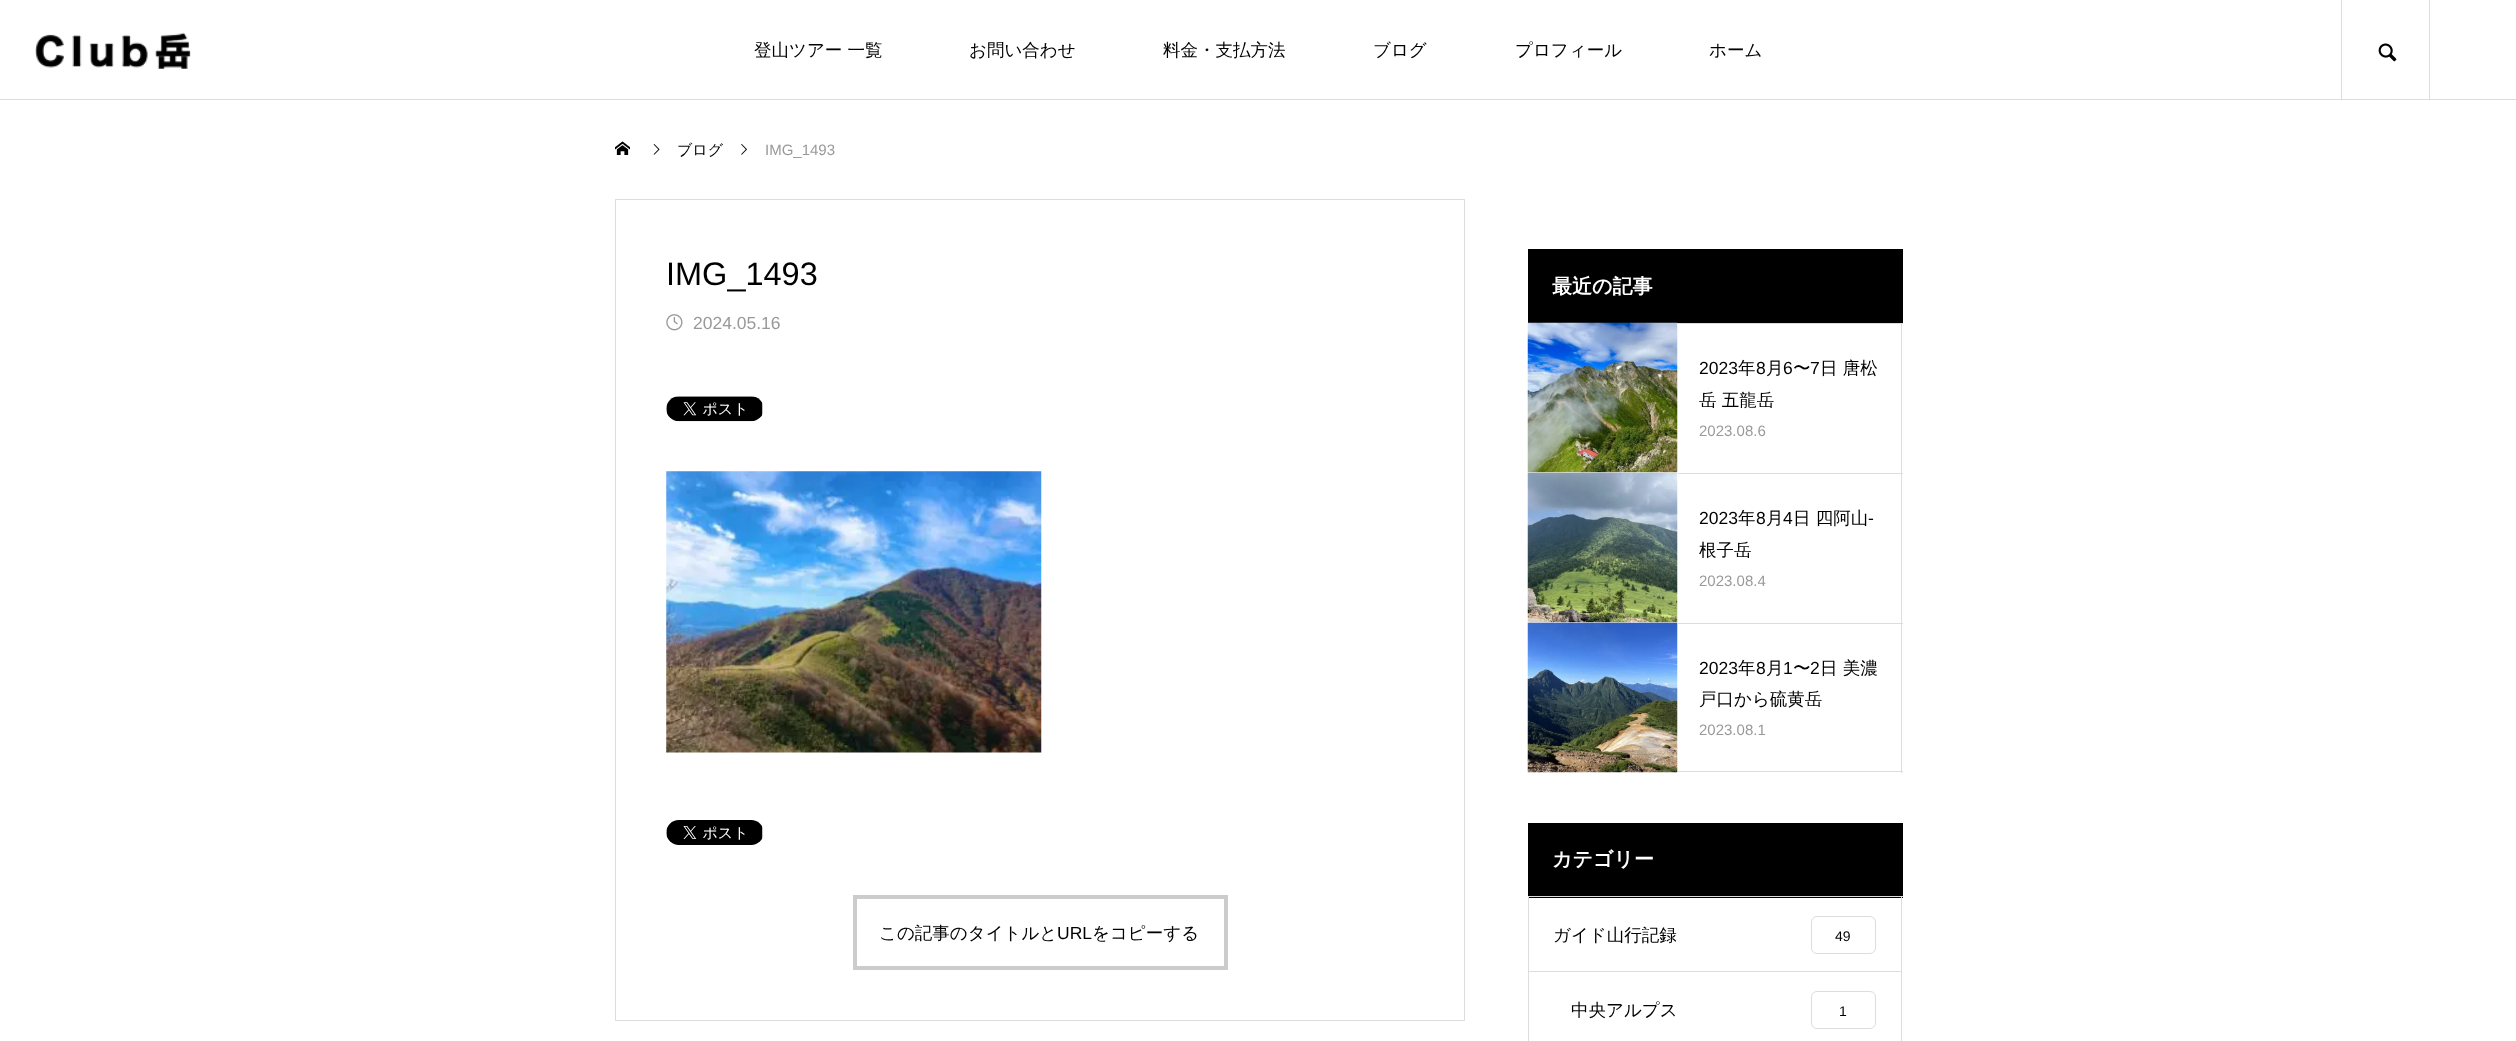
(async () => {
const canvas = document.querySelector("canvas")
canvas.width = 2516
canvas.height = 1041
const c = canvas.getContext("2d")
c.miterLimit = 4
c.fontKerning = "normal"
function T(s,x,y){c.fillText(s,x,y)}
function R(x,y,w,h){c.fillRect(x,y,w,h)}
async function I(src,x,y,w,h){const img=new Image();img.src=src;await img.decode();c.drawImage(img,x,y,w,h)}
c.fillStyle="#fff"
R(0,0,2516,1041)
c.fillStyle="#ddd"
R(0,99,2516,1)
await I("1.png",35,32,156,37)
c.font="500 17.5px WenQuanYi Zen Hei"
c.fillStyle="#000"
T("登山ツアー 一覧",754,56)
T("お問い合わせ",969,56)
T("料金・支払方法",1163,56)
T("ブログ",1373,56)
T("プロフィール",1515,56)
T("ホーム",1709,56)
c.fillStyle="#ddd"
R(2341,0,1,100)
await I("2.png",2378,43,19,19)
R(2429,0,1,100)
await I("3.png",615,141,15,14)
await I("4.png",653,144,7,11)
c.font="500 15px WenQuanYi Zen Hei"
c.fillStyle="#000"
T("ブログ",677,155)
await I("5.png",741,144,6,11)
c.font="15px Liberation Sans"
c.fillStyle="#999"
T("IMG_1493",765,155)
c.strokeStyle="#ddd"
c.strokeRect(615.5,199.5,849,821)
c.font="32.5px Liberation Sans"
c.fillStyle="#000"
T("IMG_1493",666,285)
await I("6.png",666,314,17,17)
c.font="17.5px Liberation Sans"
c.fillStyle="#999"
T("2024.05.16",693,329)
await I("7.png",666,396,97,26)
await I("8.png",666,471,376,282)
await I("9.png",666,820,97,25)
c.strokeStyle="#ccc"
c.lineWidth=4
c.strokeRect(855,897,371,71)
c.font="500 17.5px WenQuanYi Zen Hei"
c.fillStyle="#000"
T("この記事のタイトルと",879,939)
c.font="17.5px Liberation Sans"
T("URL",1057,939)
c.font="500 17.5px WenQuanYi Zen Hei"
T("をコピーする",1092,939)
R(1528,249,375,74)
c.font="bold 20px WenQuanYi Zen Hei"
c.fillStyle="#fff"
T("最近の記事",1552,293)
await I("10.png",1527,322,151,151)
c.fillStyle="#ddd"
R(1678,323,225,1)
R(1901,323,1,150)
c.font="17.5px Liberation Sans"
c.fillStyle="#000"
T("2023",1699,374)
c.font="500 17.5px WenQuanYi Zen Hei"
T("年",1738,374)
c.font="17.5px Liberation Sans"
T("8",1756,374)
c.font="500 17.5px WenQuanYi Zen Hei"
T("月",1766,374)
c.font="17.5px Liberation Sans"
T("6",1783,374)
c.font="500 17.5px WenQuanYi Zen Hei"
T("〜",1793,374)
c.font="17.5px Liberation Sans"
T("7",1810,374)
c.font="500 17.5px WenQuanYi Zen Hei"
T("日 唐松",1820,374)
T("岳 五龍岳",1699,406)
c.font="15px Liberation Sans"
c.fillStyle="#999"
T("2023.08.6",1699,436)
await I("11.png",1527,472,151,151)
c.fillStyle="#ddd"
R(1678,473,225,1)
R(1901,473,1,150)
c.font="17.5px Liberation Sans"
c.fillStyle="#000"
T("2023",1699,524)
c.font="500 17.5px WenQuanYi Zen Hei"
T("年",1738,524)
c.font="17.5px Liberation Sans"
T("8",1756,524)
c.font="500 17.5px WenQuanYi Zen Hei"
T("月",1766,524)
c.font="17.5px Liberation Sans"
T("4",1783,524)
c.font="500 17.5px WenQuanYi Zen Hei"
T("日 四阿山",1793,524)
c.font="17.5px Liberation Sans"
T("-",1868,524)
c.font="500 17.5px WenQuanYi Zen Hei"
T("根子岳",1699,556)
c.font="15px Liberation Sans"
c.fillStyle="#999"
T("2023.08.4",1699,586)
await I("12.png",1527,622,151,151)
c.fillStyle="#ddd"
R(1678,623,225,1)
R(1901,623,1,150)
R(1678,771,225,1)
c.font="17.5px Liberation Sans"
c.fillStyle="#000"
T("2023",1699,674)
c.font="500 17.5px WenQuanYi Zen Hei"
T("年",1738,674)
c.font="17.5px Liberation Sans"
T("8",1756,674)
c.font="500 17.5px WenQuanYi Zen Hei"
T("月",1766,674)
c.font="17.5px Liberation Sans"
T("1",1783,674)
c.font="500 17.5px WenQuanYi Zen Hei"
T("〜",1793,674)
c.font="17.5px Liberation Sans"
T("2",1810,674)
c.font="500 17.5px WenQuanYi Zen Hei"
T("日 美濃",1820,674)
T("戸口から硫黄岳",1699,705)
c.font="15px Liberation Sans"
c.fillStyle="#999"
T("2023.08.1",1699,735)
c.fillStyle="#000"
R(1528,823,375,75)
c.font="bold 20px WenQuanYi Zen Hei"
c.fillStyle="#fff"
T("カテゴリー",1552,866)
c.fillStyle="#ddd"
R(1528,896,375,1)
R(1901,896,1,145)
R(1528,896,1,145)
R(1529,971,372,1)
c.font="500 17.5px WenQuanYi Zen Hei"
c.fillStyle="#000"
T("ガイド山行記録",1553,941)
c.beginPath()
c.roundRect(1811.5,916.5,64,37,5.5)
c.strokeStyle="#ddd"
c.lineWidth=1
c.stroke()
c.font="14px Liberation Sans"
T("49",1835,941)
c.font="500 17.5px WenQuanYi Zen Hei"
T("中央アルプス",1571,1016)
c.beginPath()
c.roundRect(1811.5,991.5,64,37,5.5)
c.stroke()
c.font="14px Liberation Sans"
T("1",1839,1016)
})()
